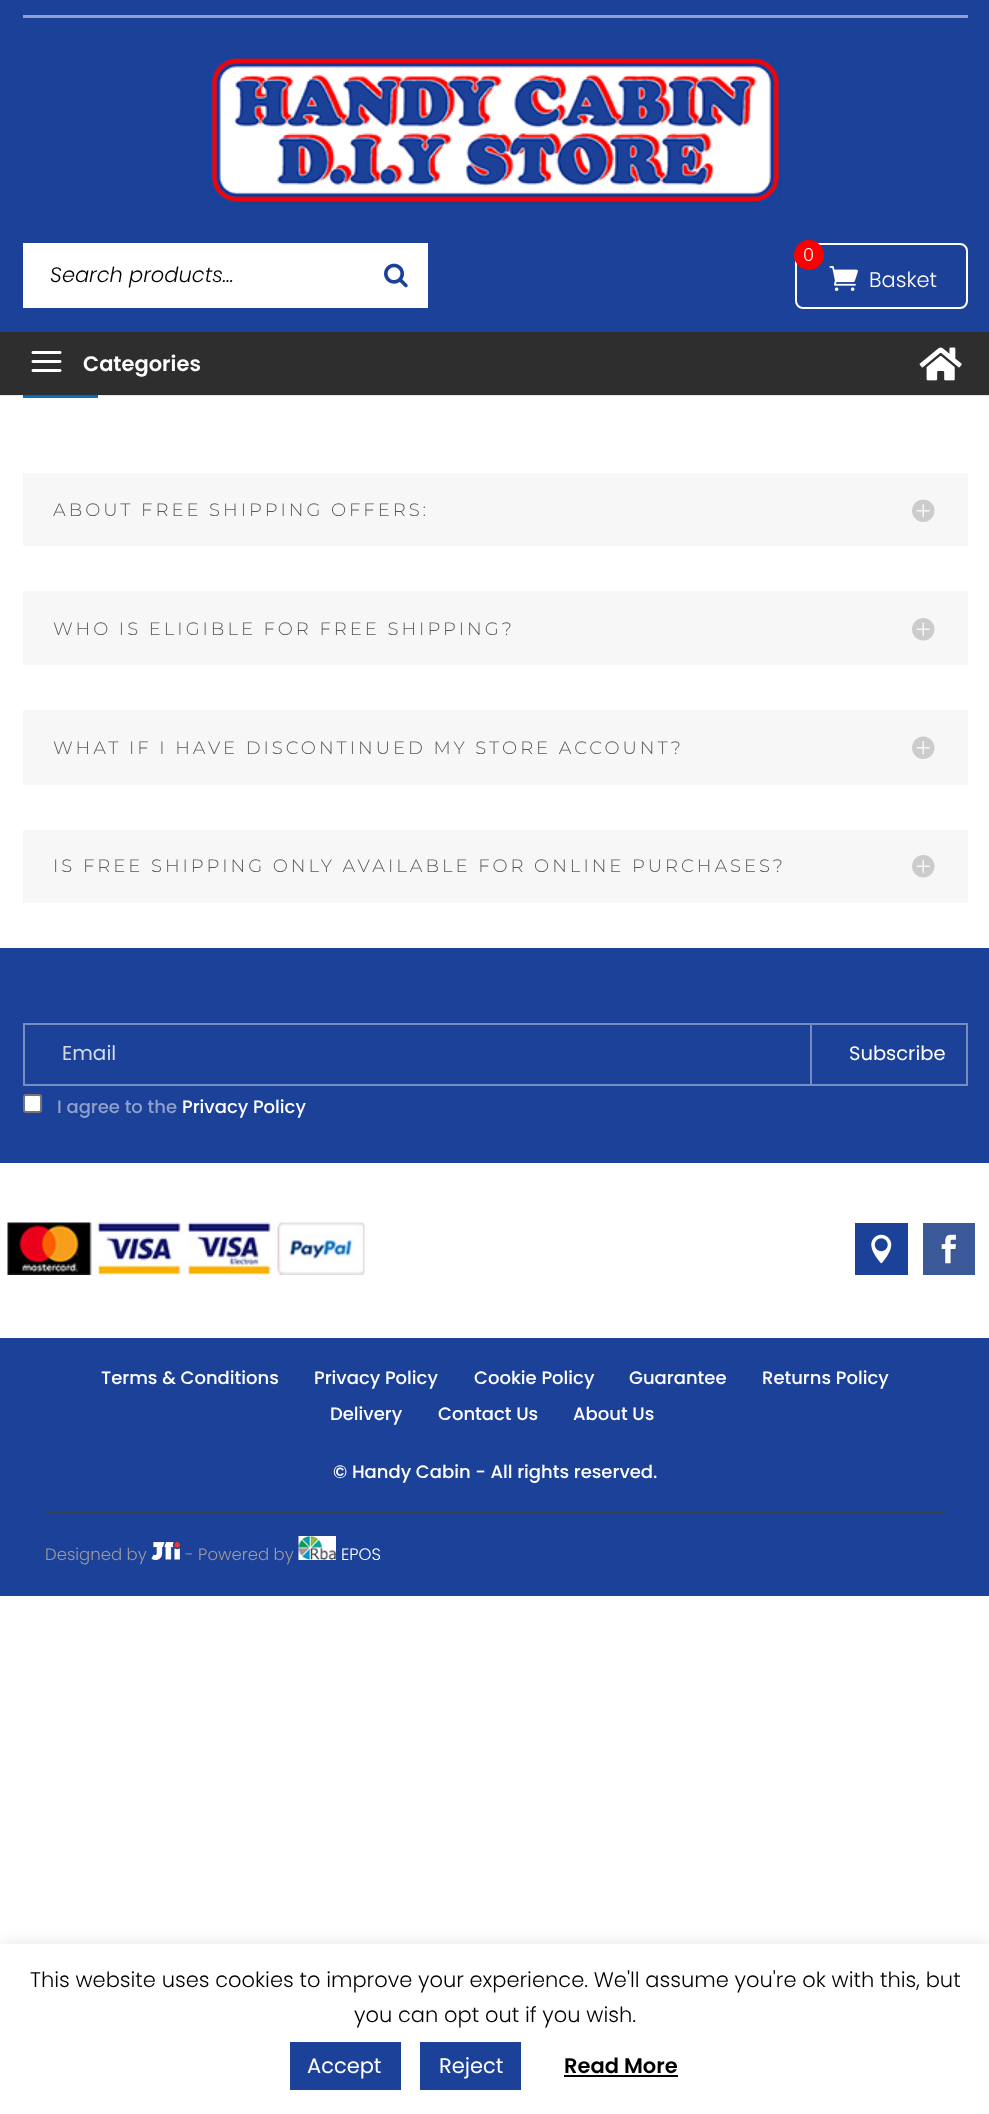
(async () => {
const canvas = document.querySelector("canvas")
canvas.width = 989
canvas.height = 2114
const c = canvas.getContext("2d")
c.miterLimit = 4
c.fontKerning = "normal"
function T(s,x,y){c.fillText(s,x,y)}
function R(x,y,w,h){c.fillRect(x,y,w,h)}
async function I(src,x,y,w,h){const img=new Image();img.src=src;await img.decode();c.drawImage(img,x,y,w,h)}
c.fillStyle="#fff"
R(0,0,989,2114)
c.fillStyle="#e6e6e6"
R(0,395,989,1)
c.fillStyle="#1c4198"
R(0,0,989,332)
c.fillStyle="#8ea0cc"
R(23,15,945,3)
await I("1.png",209,55,573,150)
c.fillStyle="#fff"
R(23,243,405,65)
c.font="italic 300 21px Poppins"
c.fillStyle="#000"
T("Search products…",50,282)
await I("2.png",384,263,24,25)
c.beginPath()
c.roundRect(796,244,171,64,[14,7,7,7])
c.strokeStyle="#fff"
c.lineWidth=2
c.stroke()
c.fillStyle="#fb0000"
c.beginPath()
c.arc(809,255,15,0,7)
c.fill()
c.font="300 18px Poppins"
c.fillStyle="#fff"
T("0",803,261)
await I("3.png",829,266,29,25)
c.font="300 21px Poppins"
T("Basket",869,287)
c.fillStyle="#2e2e2e"
R(0,332,989,63)
await I("4.png",31,351,31,21)
c.font="600 21px Poppins"
c.fillStyle="#fff"
T("Categories",83,371)
await I("5.png",919,347,43,34)
c.fillStyle="#0c71c3"
R(23,396,75,2)
c.fillStyle="#0b66b0"
R(23,395,75,1)
c.fillStyle="#f7f7f7"
R(23,473,945,73)
c.letterSpacing="3px"
c.font="100 18px Montserrat"
c.fillStyle="#595959"
T("ABOUT FREE SHIPPING OFFERS:",53,516)
await I("6.png",912,499,23,23)
c.fillStyle="#f7f7f7"
R(23,591,945,74)
c.fillStyle="#595959"
T("WHO IS ELIGIBLE FOR FREE SHIPPING?",53,635)
await I("7.png",912,618,23,23)
c.fillStyle="#f7f7f7"
R(23,710,945,75)
c.fillStyle="#595959"
T("WHAT IF I HAVE DISCONTINUED MY STORE ACCOUNT?",53,754)
await I("6.png",912,736,23,23)
c.fillStyle="#f7f7f7"
R(23,830,945,73)
c.fillStyle="#595959"
T("IS FREE SHIPPING ONLY AVAILABLE FOR ONLINE PURCHASES?",53,872)
await I("7.png",912,855,23,23)
c.fillStyle="#1c4198"
R(0,948,989,215)
c.strokeStyle="#778dc1"
c.strokeRect(24,1024,943,61)
c.letterSpacing="0px"
c.font="20px Poppins"
c.fillStyle="#d2d9ea"
T("Email",62,1060)
c.strokeRect(811,1024,156,61)
c.font="19.5px Poppins"
c.fillStyle="#fff"
T("Subscribe",849,1060)
c.beginPath()
c.roundRect(24,1095,17,17,2)
c.fill()
c.strokeStyle="#767676"
c.stroke()
c.font="500 18px Poppins"
c.fillStyle="#8ea0cc"
T("I agree to the",57,1113)
c.fillStyle="#fff"
T("Privacy Policy",182,1113)
await I("8.png",7,1222,358,53)
c.fillStyle="#1c4198"
R(855,1223,53,52)
await I("9.png",871,1234,21,30)
c.fillStyle="#3b5998"
R(923,1223,52,52)
await I("10.png",941,1234,15,30)
c.fillStyle="#1c4198"
R(0,1338,989,258)
c.fillStyle="#fff"
T("Terms & Conditions",101,1384)
T("Privacy Policy",314,1384)
T("Cookie Policy",474,1384)
T("Guarantee",629,1384)
T("Returns Policy",762,1384)
T("Delivery",330,1420)
T("Contact Us",438,1420)
T("About Us",573,1420)
T("© Handy Cabin - All rights reserved.",333,1478)
c.fillStyle="#354058"
R(45,1512,900,2)
c.font="300 16.5px Poppins"
c.fillStyle="#9e9b9e"
T("Designed by",45,1560)
await I("11.png",151,1542,29,18)
T("- Powered by",185,1560)
await I("12.png",298,1536,38,24)
c.fillStyle="#fff"
T("EPOS",341,1560)
c.fillStyle="#acabab4d"
c.filter="blur(7.5px)"
c.beginPath()
c.rect(0,1943,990,171)
c.fill()
c.filter="none"
c.fillStyle="#fff"
R(0,1944,989,170)
c.font="300 21px Poppins"
c.fillStyle="#000"
T("This website uses cookies to improve your experience. We'll assume you're ok with this, but",30,1987)
T("you can opt out if you wish.",354,2022)
c.fillStyle="#1c4198"
R(290,2042,111,48)
c.font="21px Poppins"
c.fillStyle="#fff"
T("Accept",307,2073)
c.fillStyle="#1c4198"
R(420,2042,101,48)
c.fillStyle="#fff"
T("Reject",439,2073)
c.font="600 21px Poppins"
c.fillStyle="#000"
T("Read More",564,2073)
R(564,2075,114,2)
})()
